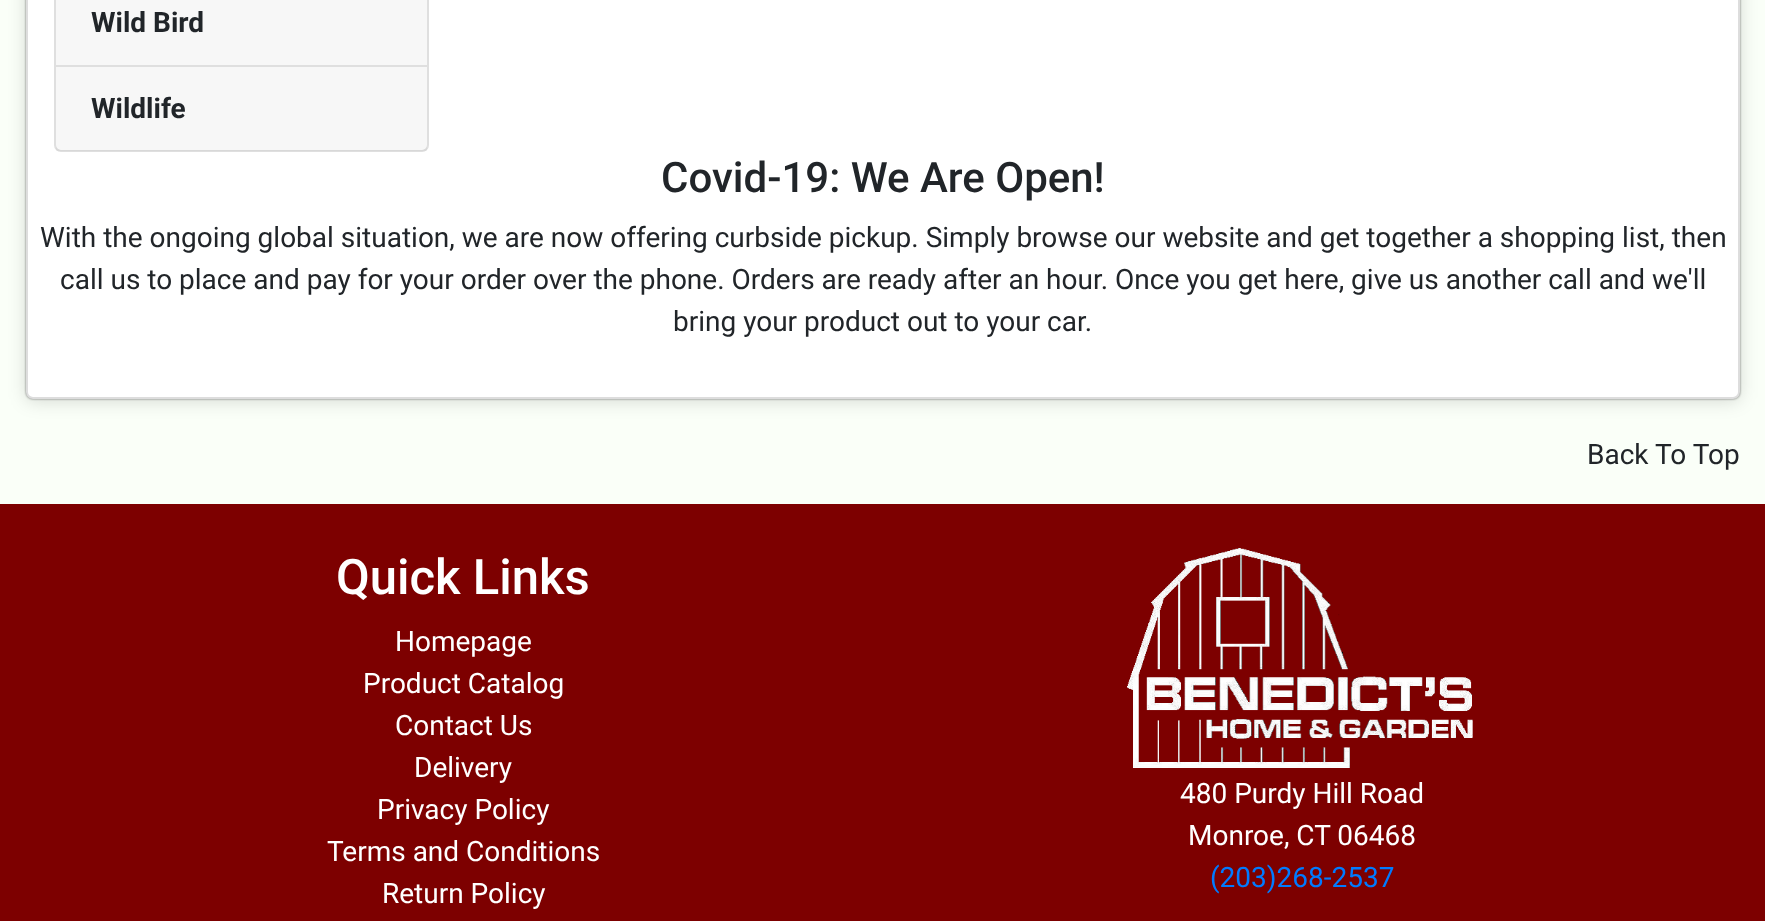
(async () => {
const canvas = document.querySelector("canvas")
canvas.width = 1765
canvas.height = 921
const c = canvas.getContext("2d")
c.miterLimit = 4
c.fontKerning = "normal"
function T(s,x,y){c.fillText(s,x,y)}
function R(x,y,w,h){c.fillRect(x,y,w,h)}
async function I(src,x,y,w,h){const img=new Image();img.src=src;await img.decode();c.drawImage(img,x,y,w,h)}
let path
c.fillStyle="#fafff8"
R(0,0,1765,921)
c.fillStyle="#00000026"
c.filter="blur(9px)"
c.beginPath()
c.roundRect(26,-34,1714,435,7)
c.fill()
c.filter="none"
c.fillStyle="#00000080"
c.filter="blur(1px)"
c.beginPath()
c.roundRect(26,-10,1714,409,7)
c.fill()
c.filter="none"
c.fillStyle="#fff"
c.beginPath()
c.roundRect(27,-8,1712,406,6)
c.fill()
c.strokeStyle="#ddd"
c.lineWidth=2
c.stroke()
c.fillStyle="#dfdfdf"
path = new Path2D("M429-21v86h-2v-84z")
c.fill(path)
path = new Path2D("M54 65v-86l2 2v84z")
c.fill(path)
c.fillStyle="#f7f7f7"
R(56,0,371,65)
c.font="bold 28px Roboto"
c.fillStyle="#212529"
T("Wild Bird",91,32)
c.beginPath()
c.roundRect(55,66,373,85,[0,0,6,6])
c.strokeStyle="#dfdfdf"
c.stroke()
c.fillStyle="#00000008"
R(56,67,371,84)
c.fillStyle="#212529"
T("Wildlife",91,118)
c.font="500 42px Roboto"
T("Covid-19: We Are Open!",661,192)
c.font="28px Roboto"
T("With the ongoing global situation, we are now offering curbside pickup. Simply browse our website and get together a shopping list, then",40,247)
T("call us to place and pay for your order over the phone. Orders are ready after an hour. Once you get here, give us another call and we'll",60,289)
T("bring your product out to your car.",673,331)
T("Back To Top",1587,464)
c.fillStyle="#7d0000"
R(0,504,1765,417)
c.font="500 49px Roboto"
c.fillStyle="#fff"
T("Quick Links",336,594)
c.font="28px Roboto"
T("Homepage",395,651)
T("Product Catalog",363,693)
T("Contact Us",395,735)
T("Delivery",414,777)
T("Privacy Policy",377,819)
T("Terms and Conditions",327,861)
T("Return Policy",382,903)
await I("1.png",1127,548,346,220)
T("480 Purdy Hill Road",1180,803)
T("Monroe, CT 06468",1188,845)
c.fillStyle="#007bff"
T("(203)268-2537",1210,887)
})()
